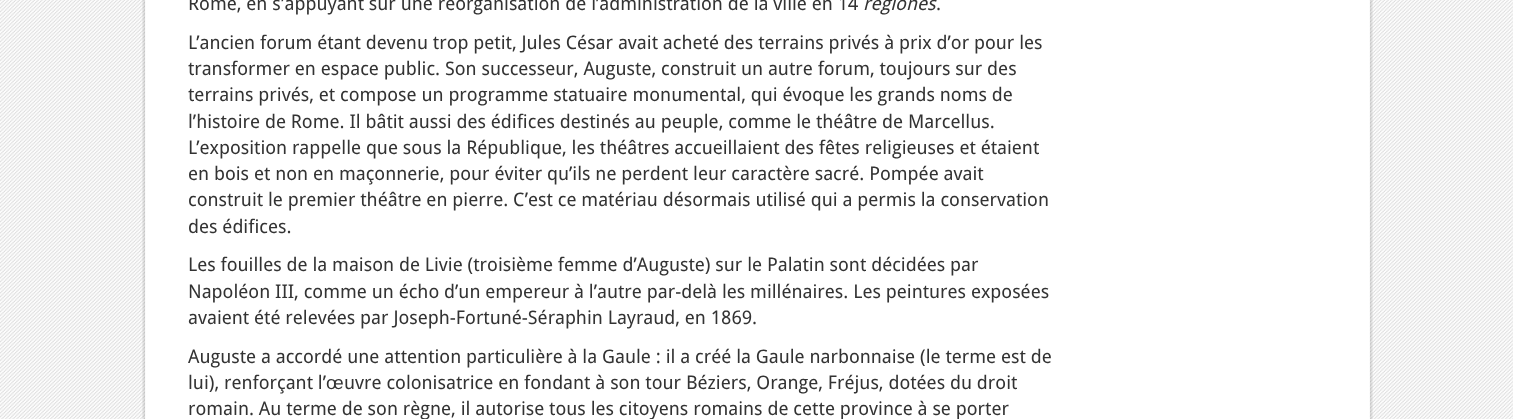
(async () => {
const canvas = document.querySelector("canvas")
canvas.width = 1513
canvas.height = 419
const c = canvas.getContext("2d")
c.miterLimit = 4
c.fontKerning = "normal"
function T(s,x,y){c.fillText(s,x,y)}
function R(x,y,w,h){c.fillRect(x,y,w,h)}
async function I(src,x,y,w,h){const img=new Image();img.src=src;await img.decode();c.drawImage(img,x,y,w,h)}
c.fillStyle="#fff"
R(0,0,1513,419)
await I("1.png",0,0,1513,419)
await I("2.png",142,0,1231,419)
c.font="18.75px Droid Sans"
c.fillStyle="#333"
T("Rome, en s’appuyant sur une réorganisation de l’administration de la ville en 14",188,10)
c.font="italic 18.75px Droid Sans"
T("regiones",863,10)
c.font="18.75px Droid Sans"
T(".",936,10)
T("L’ancien forum étant devenu trop petit, Jules César avait acheté des terrains privés à prix d’or pour les",188,49)
T("transformer en espace public. Son successeur, Auguste, construit un autre forum, toujours sur des",188,75)
T("terrains privés, et compose un programme statuaire monumental, qui évoque les grands noms de",188,101)
T("l’histoire de Rome. Il bâtit aussi des édifices destinés au peuple, comme le théâtre de Marcellus.",188,128)
T("L’exposition rappelle que sous la République, les théâtres accueillaient des fêtes religieuses et étaient",188,154)
T("en bois et non en maçonnerie, pour éviter qu’ils ne perdent leur caractère sacré. Pompée avait",188,180)
T("construit le premier théâtre en pierre. C’est ce matériau désormais utilisé qui a permis la conservation",188,206)
T("des édifices.",188,233)
T("Les fouilles de la maison de Livie (troisième femme d’Auguste) sur le Palatin sont décidées par",188,271)
T("Napoléon III, comme un écho d’un empereur à l’autre par-delà les millénaires. Les peintures exposées",188,298)
T("avaient été relevées par Joseph-Fortuné-Séraphin Layraud, en 1869.",188,324)
T("Auguste a accordé une attention particulière à la Gaule : il a créé la Gaule narbonnaise (le terme est de",188,363)
T("lui), renforçant l’",188,389)
c.font="18.75px Liberation Sans"
T("œ",326,389)
c.font="18.75px Droid Sans"
T("uvre colonisatrice en fondant à son tour Béziers, Orange, Fréjus, dotées du droit",344,389)
T("romain. Au terme de son règne, il autorise tous les citoyens romains de cette province à se porter",188,415)
})()
